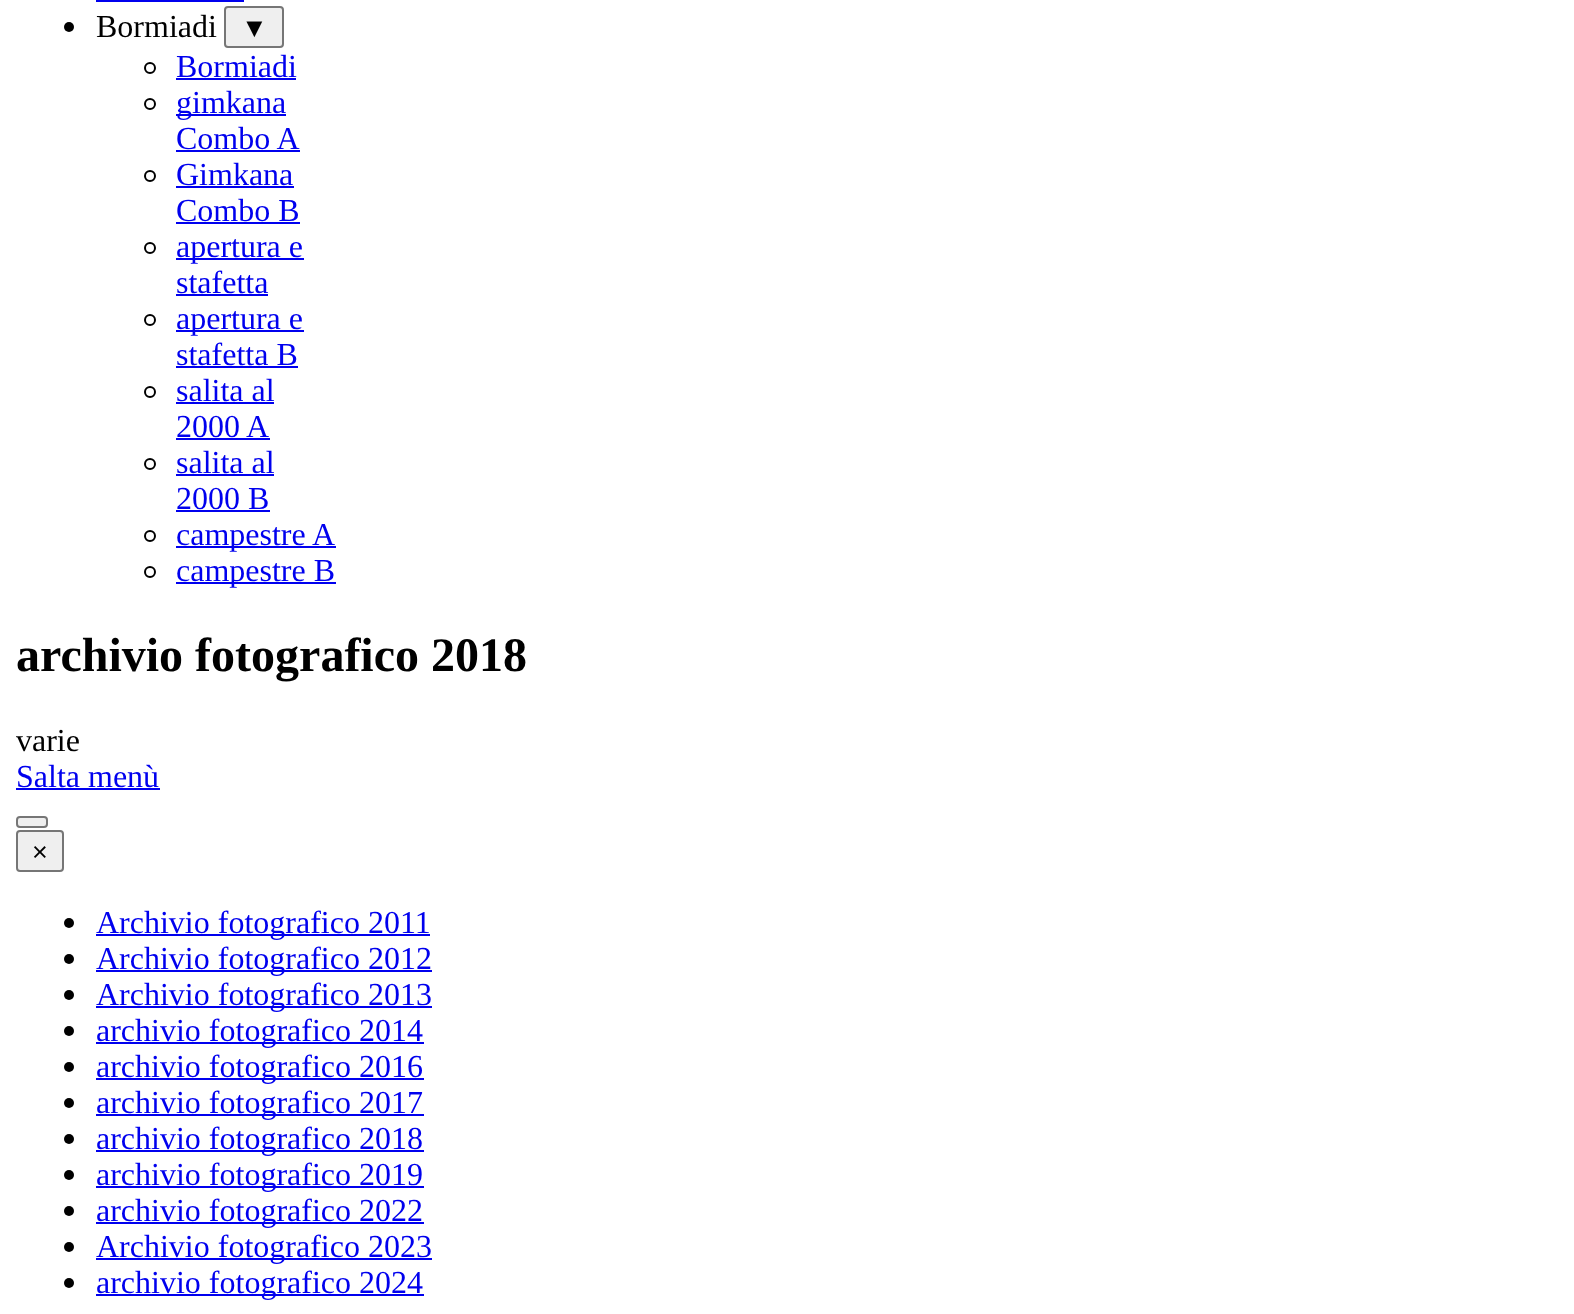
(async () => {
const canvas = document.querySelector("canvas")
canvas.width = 1574
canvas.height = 1314
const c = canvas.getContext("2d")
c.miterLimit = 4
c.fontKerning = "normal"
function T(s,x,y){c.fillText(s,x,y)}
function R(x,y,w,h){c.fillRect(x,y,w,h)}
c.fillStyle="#fff"
R(0,0,1574,1314)
c.fillStyle="#00e"
R(96,0,148,2)
c.fillStyle="#000"
c.beginPath()
c.arc(69,27,5,0,7)
c.fill()
c.font="32px Liberation Serif"
T("Bormiadi",96,37)
c.fillStyle="#efefef"
c.beginPath()
c.roundRect(225,7,58,40,3)
c.fill()
c.strokeStyle="#767676"
c.lineWidth=2
c.stroke()
c.font="27px Liberation Sans"
c.fillStyle="#000"
T("▼",241,37)
c.beginPath()
c.arc(150,68,5,0,7)
c.strokeStyle="#000"
c.stroke()
c.font="32px Liberation Serif"
c.fillStyle="#00e"
T("Bormiadi",176,77)
R(176,78,120,2)
c.beginPath()
c.arc(150,104,5,0,7)
c.stroke()
R(176,114,110,2)
T("gimkana",176,113)
T("Combo A",176,149)
R(176,150,124,2)
c.beginPath()
c.arc(150,176,5,0,7)
c.stroke()
T("Gimkana",176,185)
R(176,186,118,2)
T("Combo B",176,221)
R(176,222,124,2)
c.beginPath()
c.arc(150,248,5,0,7)
c.stroke()
R(176,258,128,2)
T("apertura e",176,257)
T("stafetta",176,293)
R(176,294,92,2)
c.beginPath()
c.arc(150,320,5,0,7)
c.stroke()
R(176,330,128,2)
T("apertura e",176,329)
T("stafetta B",176,365)
R(176,366,122,2)
c.beginPath()
c.arc(150,392,5,0,7)
c.stroke()
T("salita al",176,401)
R(176,402,98,2)
T("2000",176,437)
R(176,438,94,2)
T("A",246,437)
c.beginPath()
c.arc(150,464,5,0,7)
c.stroke()
T("salita al",176,473)
R(176,474,98,2)
T("2000 B",176,509)
R(176,510,94,2)
c.beginPath()
c.arc(150,536,5,0,7)
c.stroke()
R(176,546,160,2)
T("campestre A",176,545)
c.beginPath()
c.arc(150,572,5,0,7)
c.stroke()
R(176,582,160,2)
T("campestre B",176,581)
c.font="bold 48px Liberation Serif"
c.fillStyle="#000"
T("archivio fotografico 2018",16,671)
c.font="32px Liberation Serif"
T("varie",16,751)
c.fillStyle="#00e"
T("Salta menù",16,787)
R(16,788,144,2)
c.fillStyle="#efefef"
c.beginPath()
c.roundRect(17,817,30,10,3)
c.fill()
c.strokeStyle="#767676"
c.stroke()
c.beginPath()
c.roundRect(17,831,46,40,3)
c.fill()
c.stroke()
c.font="27px Liberation Sans"
c.fillStyle="#000"
T("×",32,861)
c.beginPath()
c.arc(69,923,5,0,7)
c.fill()
c.fillStyle="#00e"
R(96,934,334,2)
c.font="32px Liberation Serif"
T("Archivio fotografico 2011",96,933)
c.fillStyle="#000"
c.beginPath()
c.arc(69,959,5,0,7)
c.fill()
c.fillStyle="#00e"
R(96,970,336,2)
T("Archivio fotografico 2012",96,969)
c.fillStyle="#000"
c.beginPath()
c.arc(69,995,5,0,7)
c.fill()
c.fillStyle="#00e"
R(96,1006,336,2)
T("Archivio fotografico 2013",96,1005)
c.fillStyle="#000"
c.beginPath()
c.arc(69,1031,5,0,7)
c.fill()
c.fillStyle="#00e"
R(96,1042,328,2)
T("archivio fotografico 2014",96,1041)
c.fillStyle="#000"
c.beginPath()
c.arc(69,1067,5,0,7)
c.fill()
c.fillStyle="#00e"
R(96,1078,328,2)
T("archivio fotografico 2016",96,1077)
c.fillStyle="#000"
c.beginPath()
c.arc(69,1103,5,0,7)
c.fill()
c.fillStyle="#00e"
R(96,1114,328,2)
T("archivio fotografico 2017",96,1113)
c.fillStyle="#000"
c.beginPath()
c.arc(69,1139,5,0,7)
c.fill()
c.fillStyle="#00e"
R(96,1150,328,2)
T("archivio fotografico 2018",96,1149)
c.fillStyle="#000"
c.beginPath()
c.arc(69,1175,5,0,7)
c.fill()
c.fillStyle="#00e"
R(96,1186,328,2)
T("archivio fotografico 2019",96,1185)
c.fillStyle="#000"
c.beginPath()
c.arc(69,1211,5,0,7)
c.fill()
c.fillStyle="#00e"
R(96,1222,328,2)
T("archivio fotografico 2022",96,1221)
c.fillStyle="#000"
c.beginPath()
c.arc(69,1247,5,0,7)
c.fill()
c.fillStyle="#00e"
R(96,1258,336,2)
T("Archivio fotografico 2023",96,1257)
c.fillStyle="#000"
c.beginPath()
c.arc(69,1283,5,0,7)
c.fill()
c.fillStyle="#00e"
R(96,1294,328,2)
T("archivio fotografico 2024",96,1293)
})()
